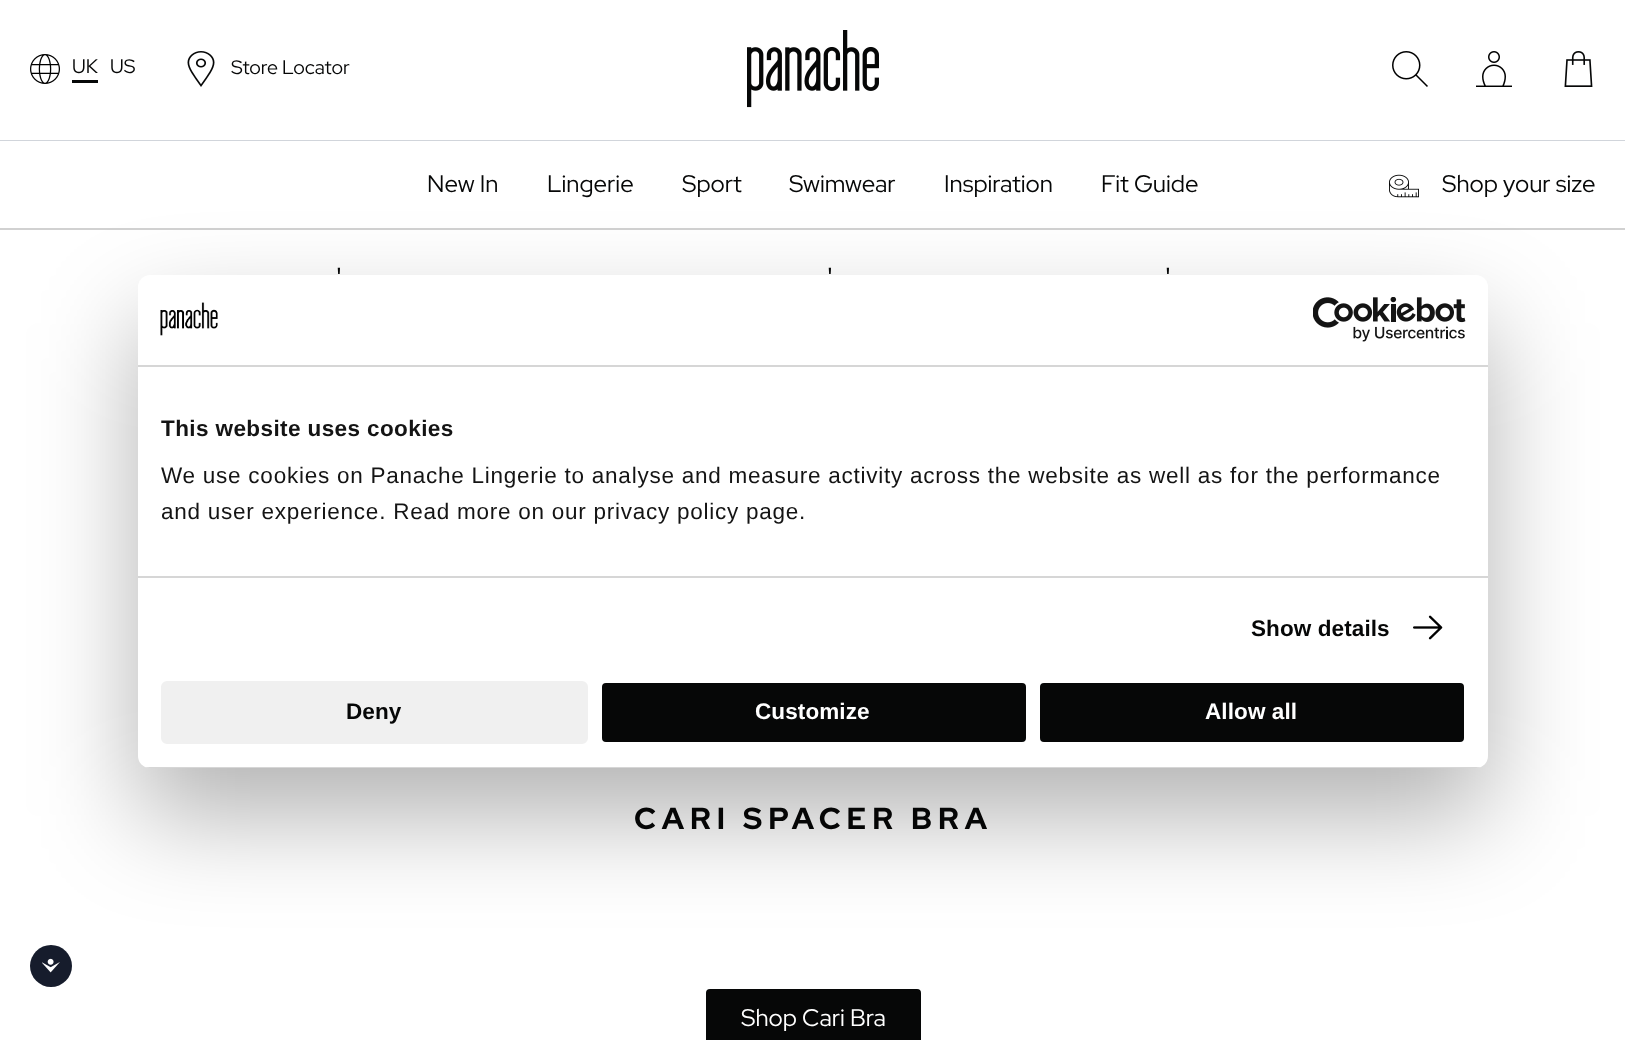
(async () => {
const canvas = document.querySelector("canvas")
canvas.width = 1625
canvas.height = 1040
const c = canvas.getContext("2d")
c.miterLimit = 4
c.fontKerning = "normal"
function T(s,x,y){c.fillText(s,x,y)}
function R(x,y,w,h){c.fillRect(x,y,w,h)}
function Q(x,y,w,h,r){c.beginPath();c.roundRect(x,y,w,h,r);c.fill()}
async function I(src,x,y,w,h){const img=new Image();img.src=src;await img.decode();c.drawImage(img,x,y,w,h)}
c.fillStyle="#fff"
R(0,0,1625,1040)
c.fillStyle="#d1d1d1"
R(0,228,1625,2)
await I("1.png",30,54,30,30)
c.fillStyle="#060707"
R(72,80,26,3)
c.font="19.5px Red Hat Display"
T("UK",72,73)
T("US",110,73)
await I("2.png",187,51,28,36)
T("Store Locator",231,74)
await I("3.png",747,30,132,78)
await I("4.png",1392,51,36,36)
await I("5.png",1476,51,36,36)
await I("6.png",1564,51,29,36)
c.fillStyle="#d1d5db"
R(0,140,1625,1)
c.font="24px Red Hat Display"
c.fillStyle="#060707"
T("New In",427,192)
T("Lingerie",547,192)
T("Sport",682,192)
T("Swimwear",789,192)
T("Inspiration",944,192)
T("Fit Guide",1101,192)
await I("7.png",1389,174,30,24)
T("Shop your size",1442,192)
c.font="30.4px Red Hat Display"
T("'",336,289)
T("'",827,289)
T("'",1165,289)
c.letterSpacing="6px"
c.font="800 30.4px Red Hat Display"
T("CARI SPACER BRA",634,829)
c.beginPath()
c.roundRect(705,988,217,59,5)
c.fill()
c.strokeStyle="#fff"
c.lineWidth=2
c.stroke()
c.letterSpacing="0px"
c.font="24px Red Hat Display"
c.fillStyle="#fff"
T("Shop Cari Bra",741,1026)
c.fillStyle="#161c2c"
c.beginPath()
c.arc(51,966,21,0,7)
c.fill()
await I("11.png",42,958,18,15)
c.fillStyle="#0000004d"
c.filter="blur(51px)"
c.beginPath()
c.roundRect(138,323,1350,493,12)
c.fill()
c.filter="none"
c.fillStyle="#fff"
Q(138,275,1350,493,12)
c.fillStyle="#d6d6d6"
R(138,365,1350,2)
await I("8.png",160,302,58,34)
await I("9.png",1313,297,153,45)
R(138,576,1350,2)
c.letterSpacing="0.4px"
c.font="bold 22.5px Liberation Sans"
c.fillStyle="#141414"
T("This website uses cookies",161,436)
c.letterSpacing="0.75px"
c.font="22.5px Liberation Sans"
T("We use cookies on Panache Lingerie to analyse and measure activity across the website as well as for the performance",161,483)
T("and user experience. Read more on our privacy policy page.",161,519)
c.letterSpacing="0.1px"
c.font="bold 22.5px Liberation Sans"
c.fillStyle="#060707"
T("Show details",1251,636)
await I("10.png",1413,615,30,25)
c.save()
c.beginPath()
c.roundRect(138,275,1350,493,12)
c.clip()
c.fillStyle="#d6d6d6"
R(138,767,1350,1)
c.restore()
c.fillStyle="#f0f0f0"
c.beginPath()
c.roundRect(162,682,425,61,5)
c.fill()
c.strokeStyle="#f0f0f0"
c.stroke()
c.fillStyle="#060707"
T("Deny",346,719)
c.beginPath()
c.roundRect(601,682,426,61,5)
c.fill()
c.strokeStyle="#fff"
c.stroke()
c.fillStyle="#fff"
T("Customize",755,719)
c.fillStyle="#060707"
c.beginPath()
c.roundRect(1039,682,426,61,5)
c.fill()
c.stroke()
c.fillStyle="#fff"
T("Allow all",1205,719)
})()
